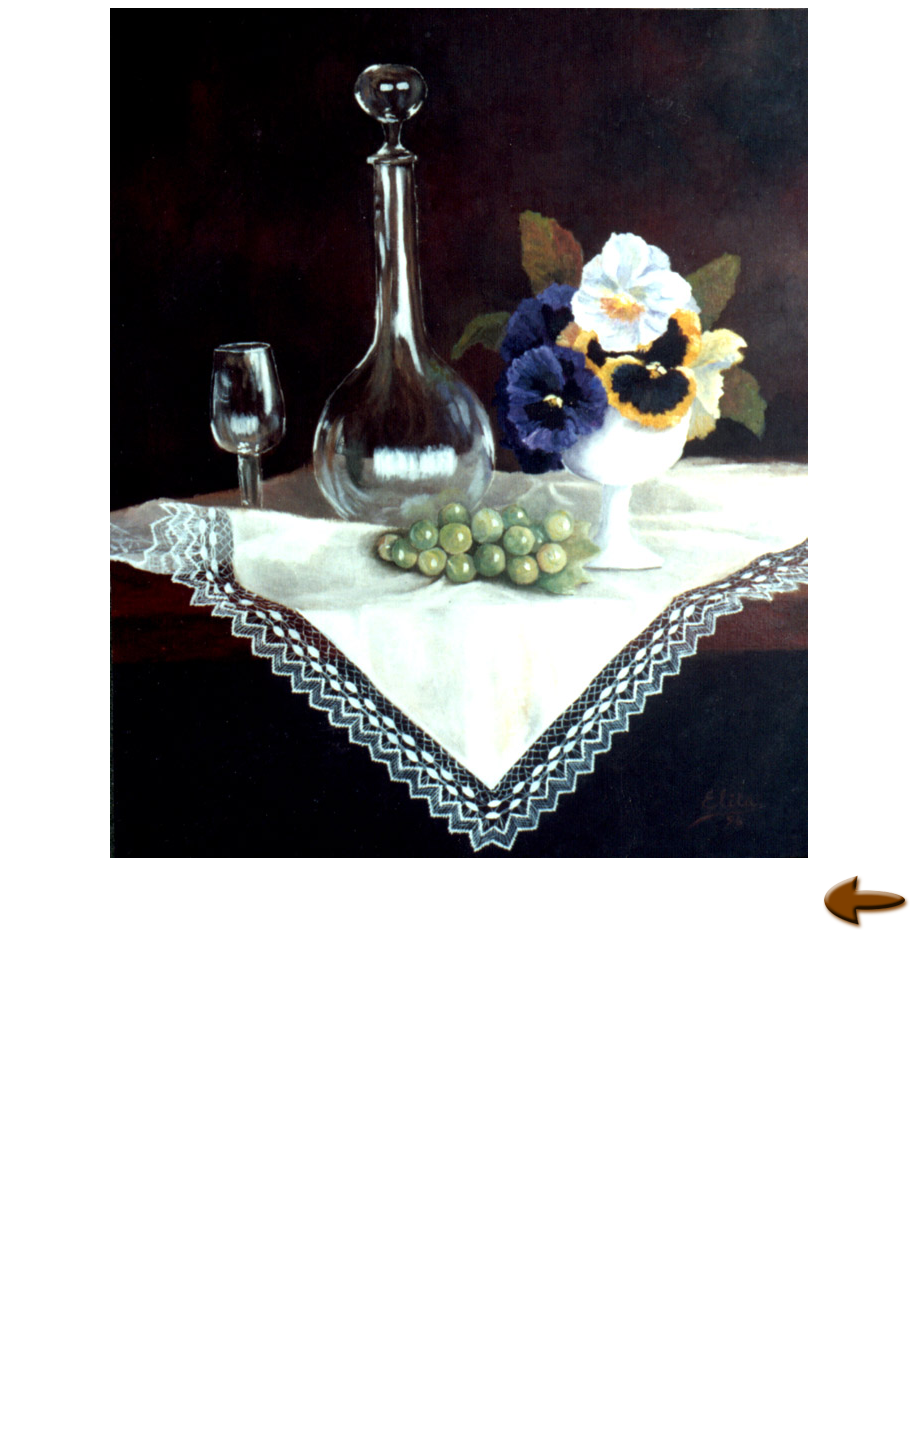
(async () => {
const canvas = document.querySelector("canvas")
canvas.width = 918
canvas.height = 1448
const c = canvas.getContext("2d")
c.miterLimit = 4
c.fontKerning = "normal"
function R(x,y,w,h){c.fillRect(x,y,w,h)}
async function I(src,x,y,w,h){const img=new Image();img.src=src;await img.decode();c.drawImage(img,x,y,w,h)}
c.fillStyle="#fff"
R(0,0,918,1448)
await I("1.png",110,8,698,850)
await I("2.png",823,875,87,55)
})()
